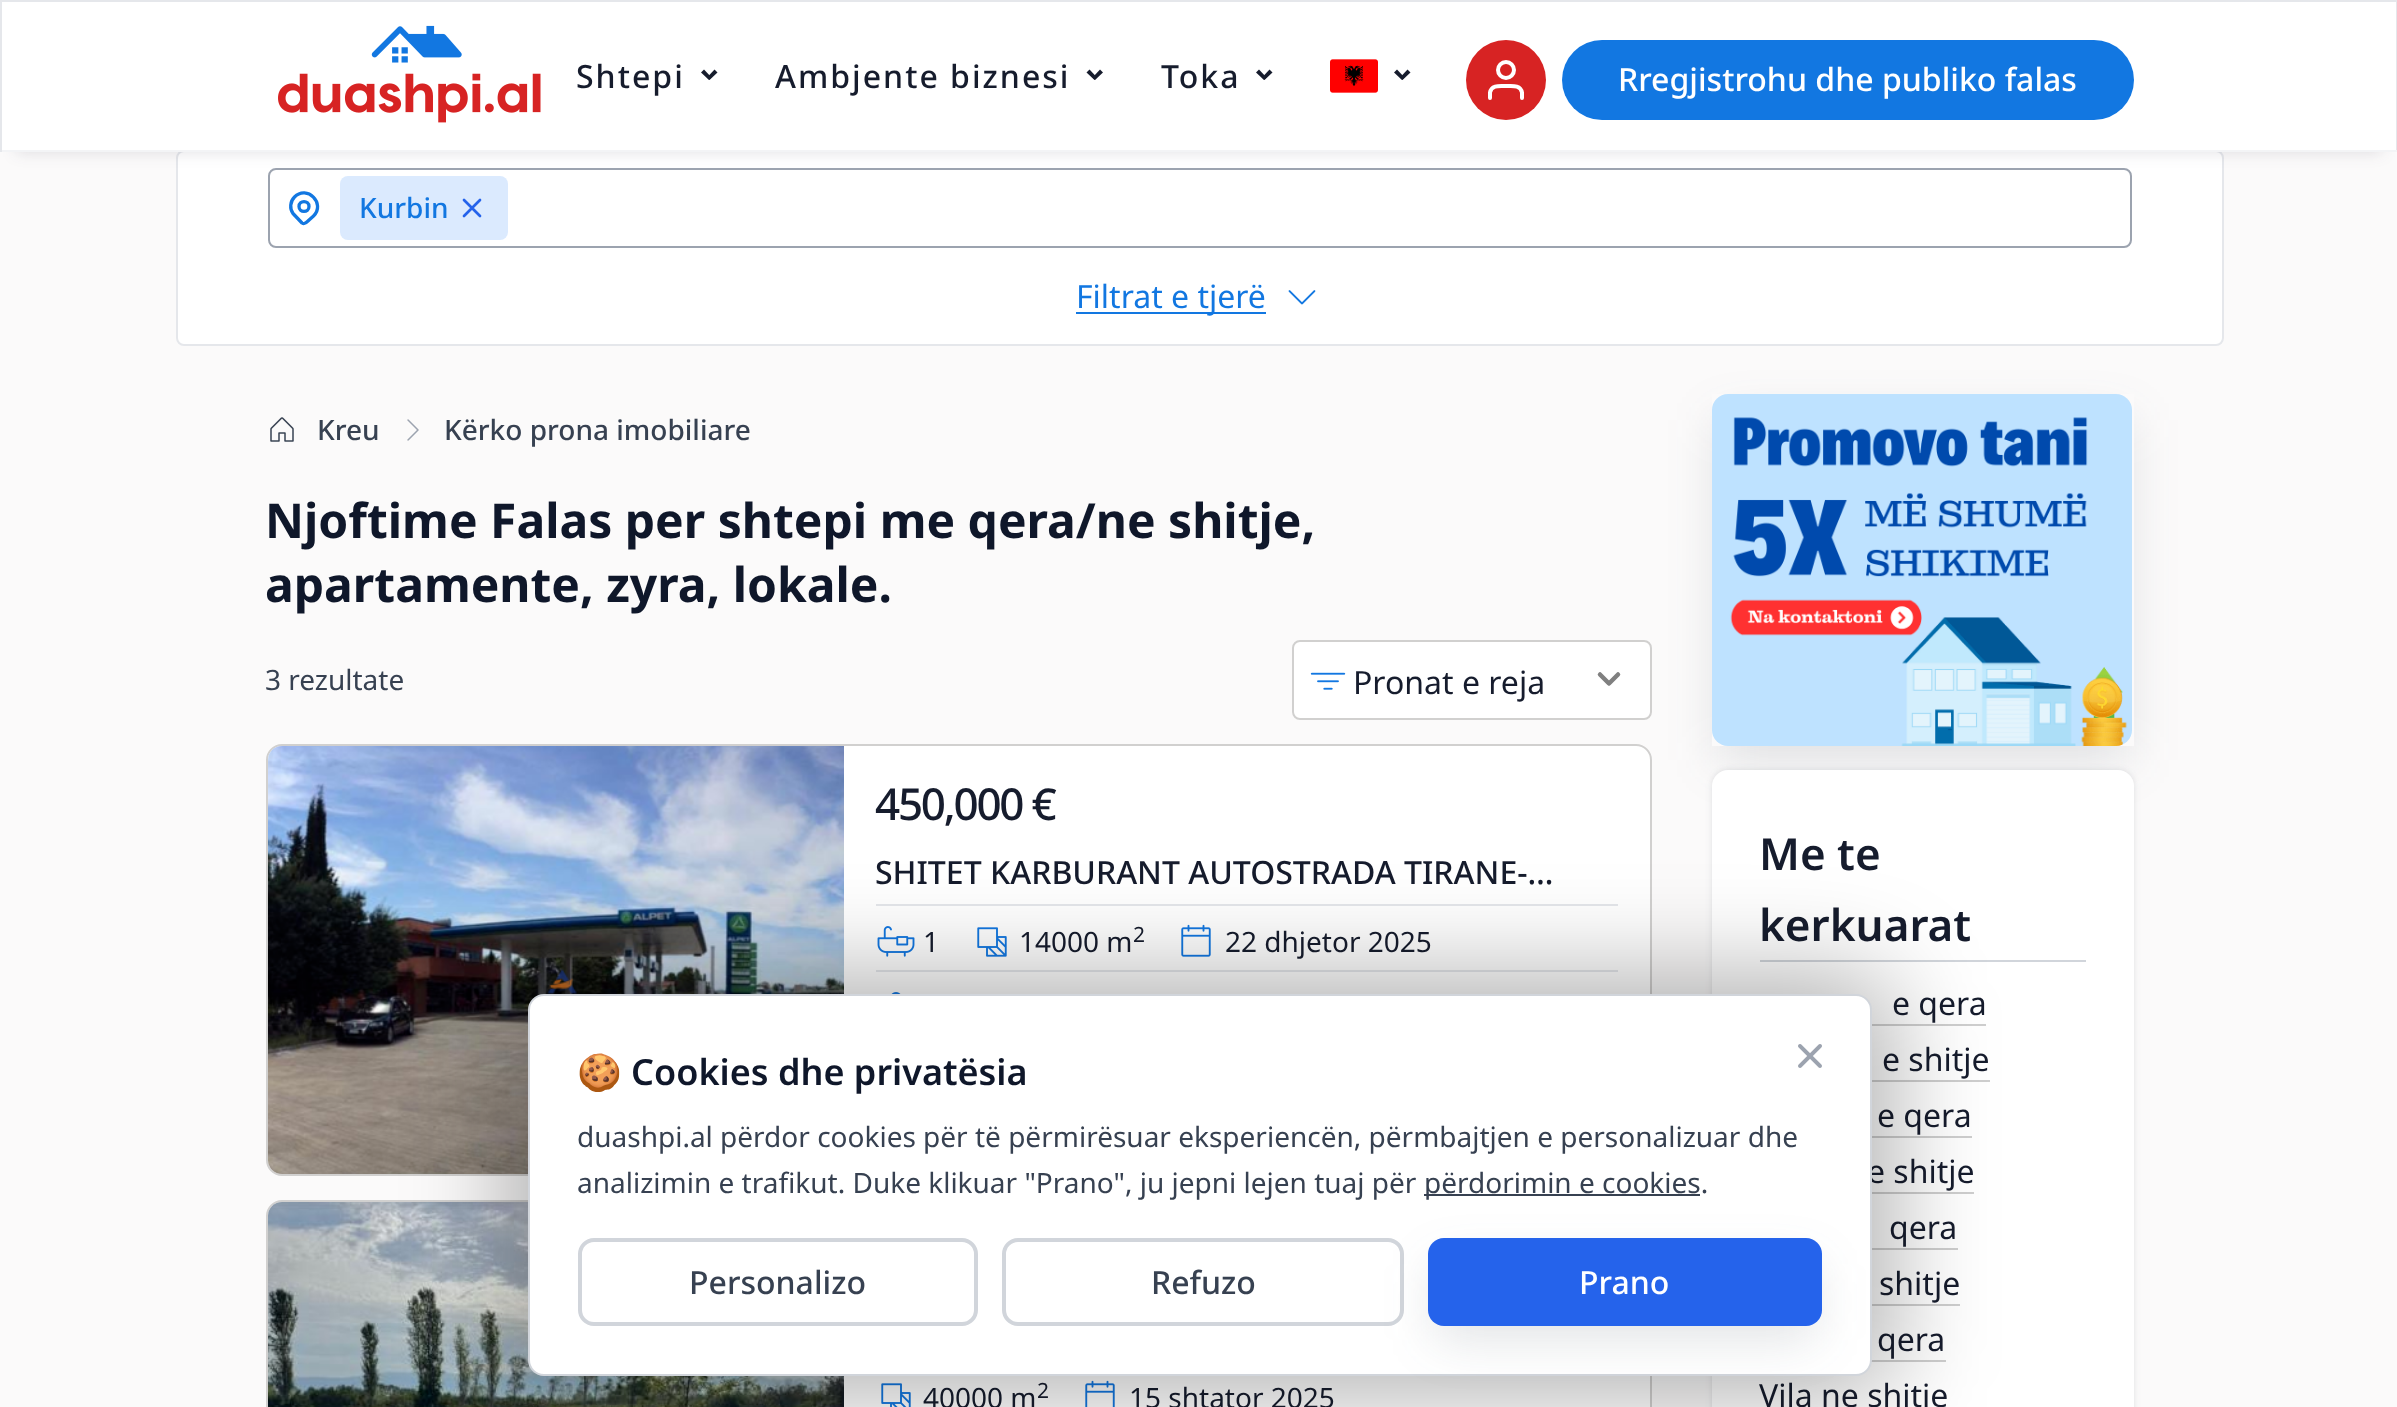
(async () => {
const canvas = document.querySelector("canvas")
canvas.width = 2397
canvas.height = 1407
const c = canvas.getContext("2d")
c.miterLimit = 4
c.fontKerning = "normal"
function T(s,x,y){c.fillText(s,x,y)}
function R(x,y,w,h){c.fillRect(x,y,w,h)}
function Q(x,y,w,h,r){c.beginPath();c.roundRect(x,y,w,h,r);c.fill()}
async function I(src,x,y,w,h){const img=new Image();img.src=src;await img.decode();c.drawImage(img,x,y,w,h)}
let path
c.fillStyle="#fbfafa"
R(0,0,2397,1407)
c.save()
path = new Path2D("M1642 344h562v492h-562zm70 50h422v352h-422z")
c.clip(path,"evenodd")
c.fillStyle="#3c485826"
c.filter="blur(25px)"
c.beginPath()
c.rect(1718,420,410,340)
c.fill()
c.filter="none"
c.restore()
c.fillStyle="#fff"
c.beginPath()
c.roundRect(177,151,2046,194,7)
c.fill()
c.strokeStyle="#e5e7eb"
c.lineWidth=2
c.stroke()
c.beginPath()
c.roundRect(269,169,1862,78,7)
c.strokeStyle="#9ca3af"
c.stroke()
c.fillStyle="#dbeafe"
Q(340,176,168,64,8)
c.fillStyle="#32274426"
c.filter="blur(8px)"
c.beginPath()
c.rect(16,32,2366,120)
c.fill()
c.filter="none"
c.fillStyle="#fff"
R(2,2,2394,148)
c.fillStyle="#e5e7eb"
R(0,0,2397,2)
R(2396,0,1,152)
c.fillStyle="#f3f4f6"
R(0,150,2397,2)
c.fillStyle="#e5e7eb"
R(0,0,2,152)
await I("1.png",278,25,263,98)
c.letterSpacing="2px"
c.font="500 32px Noto Sans"
c.fillStyle="#161c2d"
T("Shtepi",576,88)
path = new Path2D("M714.5 69.5l3 3l-8 7.5l-2.5-2.5z")
c.fill(path)
path = new Path2D("M704 69.5l7.5 8l-2.5 2.5l-8-7.5z")
c.fill(path)
T("Ambjente biznesi",775,88)
path = new Path2D("M1100 69.5l3 3l-8 7.5l-2.5-2.5z")
c.fill(path)
path = new Path2D("M1089.5 69.5l7.5 8l-2.5 2.5l-8-7.5z")
c.fill(path)
T("Toka",1161,88)
path = new Path2D("M1269.5 69.5l3 3l-8 7.5l-2.5-2.5z")
c.fill(path)
path = new Path2D("M1259 69.5l7.5 8l-2.5 2.5l-8-7.5z")
c.fill(path)
await I("2.png",1330,59,48,34)
path = new Path2D("M1407.5 69.5l3 3l-8 7.5l-2.5-2.5z")
c.fill(path)
path = new Path2D("M1397 69.5l7.5 8l-2.5 2.5l-8-7.5z")
c.fill(path)
c.fillStyle="#d72323"
c.beginPath()
c.arc(1506,80,40,0,7)
c.fill()
path = new Path2D("M1522 98v-5.5c-1.5-8-10-6.5-16-6.5c-6 0-14.5-1.5-16 6.5v5.5")
c.strokeStyle="#fff"
c.lineWidth=4
c.lineCap="round"
c.lineJoin="round"
c.stroke(path)
c.beginPath()
c.arc(1506,70,8,0,7)
c.stroke()
c.fillStyle="#1277e1"
Q(1562,40,572,80,40)
c.letterSpacing="0px"
c.fillStyle="#fff"
T("Rregjistrohu dhe publiko falas",1618,91)
path = new Path2D("M313.5 216l-5 4.5c-1.5 1.5-3.5 4.5-6.5 2.5l-9-9.5c-3.5-5-3-12 1.5-16.5c12.5-12.5 31.5 6.5 19 19zm-4.5-9.5c0 6.5-10 6.5-10 0c0-6.5 10-6.5 10 0z")
c.strokeStyle="#1277e1"
c.lineWidth=3.3
c.stroke(path)
c.font="500 28px Noto Sans"
c.fillStyle="#1277e1"
T("Kurbin",359,218)
path = new Path2D("M464 216l16-16m-16 0l16 16")
c.strokeStyle="#2563eb"
c.lineWidth=2.7
c.stroke(path)
R(1076,312,190,2)
c.font="32px Noto Sans"
T("Filtrat e tjerë",1076,308)
await I("3.png",1288,290,28,15)
await I("4.png",270,417,24,25)
c.font="500 28px Noto Sans"
c.fillStyle="#374151"
T("Kreu",317,440)
await I("5.png",407,419,12,22)
T("Kërko prona imobiliare",444,440)
c.font="bold 48px Noto Sans"
c.fillStyle="#0f172a"
T("Njoftime Falas per shtepi me qera/ne shitje,",265,538)
T("apartamente, zyra, lokale.",265,602)
c.font="28px Noto Sans"
c.fillStyle="#374151"
T("3 rezultate",265,690)
c.fillStyle="#fff"
Q(1292,640,360,80,8)
path = new Path2D("M1600 674.5l9 9l9-9")
c.strokeStyle="#808080"
c.lineWidth=4.5
c.stroke(path)
c.beginPath()
c.roundRect(1293,641,358,78,7)
c.strokeStyle="#d1d0cf"
c.lineWidth=2
c.lineJoin="miter"
c.stroke()
await I("6.png",1310,672,36,18)
c.font="32px Noto Sans"
c.fillStyle="#161c2d"
T("Pronat e reja",1353,694)
c.fillStyle="#fff"
c.beginPath()
c.roundRect(267,745,1384,430,15)
c.fill()
c.stroke()
await I("7.png",268,746,576,428)
c.letterSpacing="-2.25px"
c.font="500 44px Noto Sans"
c.fillStyle="#161c2d"
T("450,000 €",875,820)
c.letterSpacing="0px"
c.font="500 32px Noto Sans"
T("SHITET KARBURANT AUTOSTRADA TIRANE-…",875,884)
c.fillStyle="#e5e7eb"
R(876,904,742,2)
await I("8.png",877,926,38,31)
c.font="28px Noto Sans"
c.fillStyle="#161c2d"
T("1",923,952)
await I("9.png",977,927,30,30)
T("14000 m",1019,952)
c.font="21px Noto Sans"
T("2",1133,942)
await I("10.png",1181,924,30,33)
c.font="28px Noto Sans"
T("22 dhjetor 2025",1225,952)
c.fillStyle="#e5e7eb"
R(876,970,742,2)
await I("11.png",891,992,10,2)
c.fillStyle="#fff"
c.beginPath()
c.roundRect(267,1201,1384,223,15)
c.fill()
c.stroke()
await I("12.png",268,1202,576,205)
await I("13.png",881,1383,30,24)
c.fillStyle="#161c2d"
T("40000 m",923,1408)
c.font="21px Noto Sans"
T("2",1037,1398)
await I("14.png",1085,1380,30,27)
c.font="28px Noto Sans"
T("15 shtator 2025",1129,1408)
await I("15.png",1712,394,420,352)
c.fillStyle="#3c485826"
c.filter="blur(3px)"
c.beginPath()
c.roundRect(1712,770,422,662,16)
c.fill()
c.filter="none"
c.fillStyle="#fff"
Q(1712,770,422,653,16)
c.fillStyle="#d1d5db"
R(1760,960,326,2)
c.font="600 44px Noto Sans"
c.fillStyle="#161c2d"
T("Me te",1759,870)
T("kerkuarat",1759,941)
c.font="32px Noto Sans"
T("e qera",1892,1015)
c.fillStyle="#cfcfcf"
R(1872,1024,114,2)
c.fillStyle="#161c2d"
T("e shitje",1882,1071)
c.fillStyle="#cfcfcf"
R(1872,1080,118,2)
c.fillStyle="#161c2d"
T("e qera",1877,1127)
c.fillStyle="#cfcfcf"
R(1872,1136,100,2)
c.fillStyle="#161c2d"
T("e shitje",1867,1183)
c.fillStyle="#cfcfcf"
R(1872,1192,102,2)
c.fillStyle="#161c2d"
T("qera",1889,1239)
c.fillStyle="#cfcfcf"
R(1872,1248,86,2)
c.fillStyle="#161c2d"
T("shitje",1879,1295)
c.fillStyle="#cfcfcf"
R(1872,1304,88,2)
c.fillStyle="#161c2d"
T("qera",1877,1351)
c.fillStyle="#cfcfcf"
R(1871,1360,75,2)
c.fillStyle="#161c2d"
T("Vila ne shitje",1759,1407)
c.fillStyle="#0000004d"
c.filter="blur(50px)"
c.beginPath()
c.roundRect(508,974,1384,422,36)
c.fill()
c.filter="none"
c.fillStyle="#fff"
c.beginPath()
c.roundRect(529,995,1342,380,15)
c.fill()
c.strokeStyle="#d1d5db"
c.stroke()
c.font="36px Noto Color Emoji"
c.fillStyle="#0f172a"
T("🍪",577,1085)
c.font="600 36px Noto Sans"
T("Cookies dhe privatësia",631,1085)
c.font="28px Noto Sans"
c.fillStyle="#374151"
T("duashpi.al përdor cookies për të përmirësuar eksperiencën, përmbajtjen e personalizuar dhe",577,1147)
T("analizimin e trafikut. Duke klikuar \"Prano\", ju jepni lejen tuaj për",577,1193)
R(1424,1194,276,2)
T("përdorimin e cookies.",1424,1193)
c.beginPath()
c.roundRect(580,1240,396,84,14)
c.lineWidth=4
c.stroke()
c.font="500 32px Noto Sans"
T("Personalizo",689,1294)
c.beginPath()
c.roundRect(1004,1240,398,84,14)
c.stroke()
T("Refuzo",1151,1294)
c.fillStyle="#3c485826"
c.filter="blur(25px)"
c.beginPath()
c.roundRect(1434,1264,382,76,10)
c.fill()
c.filter="none"
c.fillStyle="#2563eb"
Q(1428,1238,394,88,16)
c.fillStyle="#fff"
T("Prano",1579,1294)
await I("16.png",1798,1044,24,24)
})()
